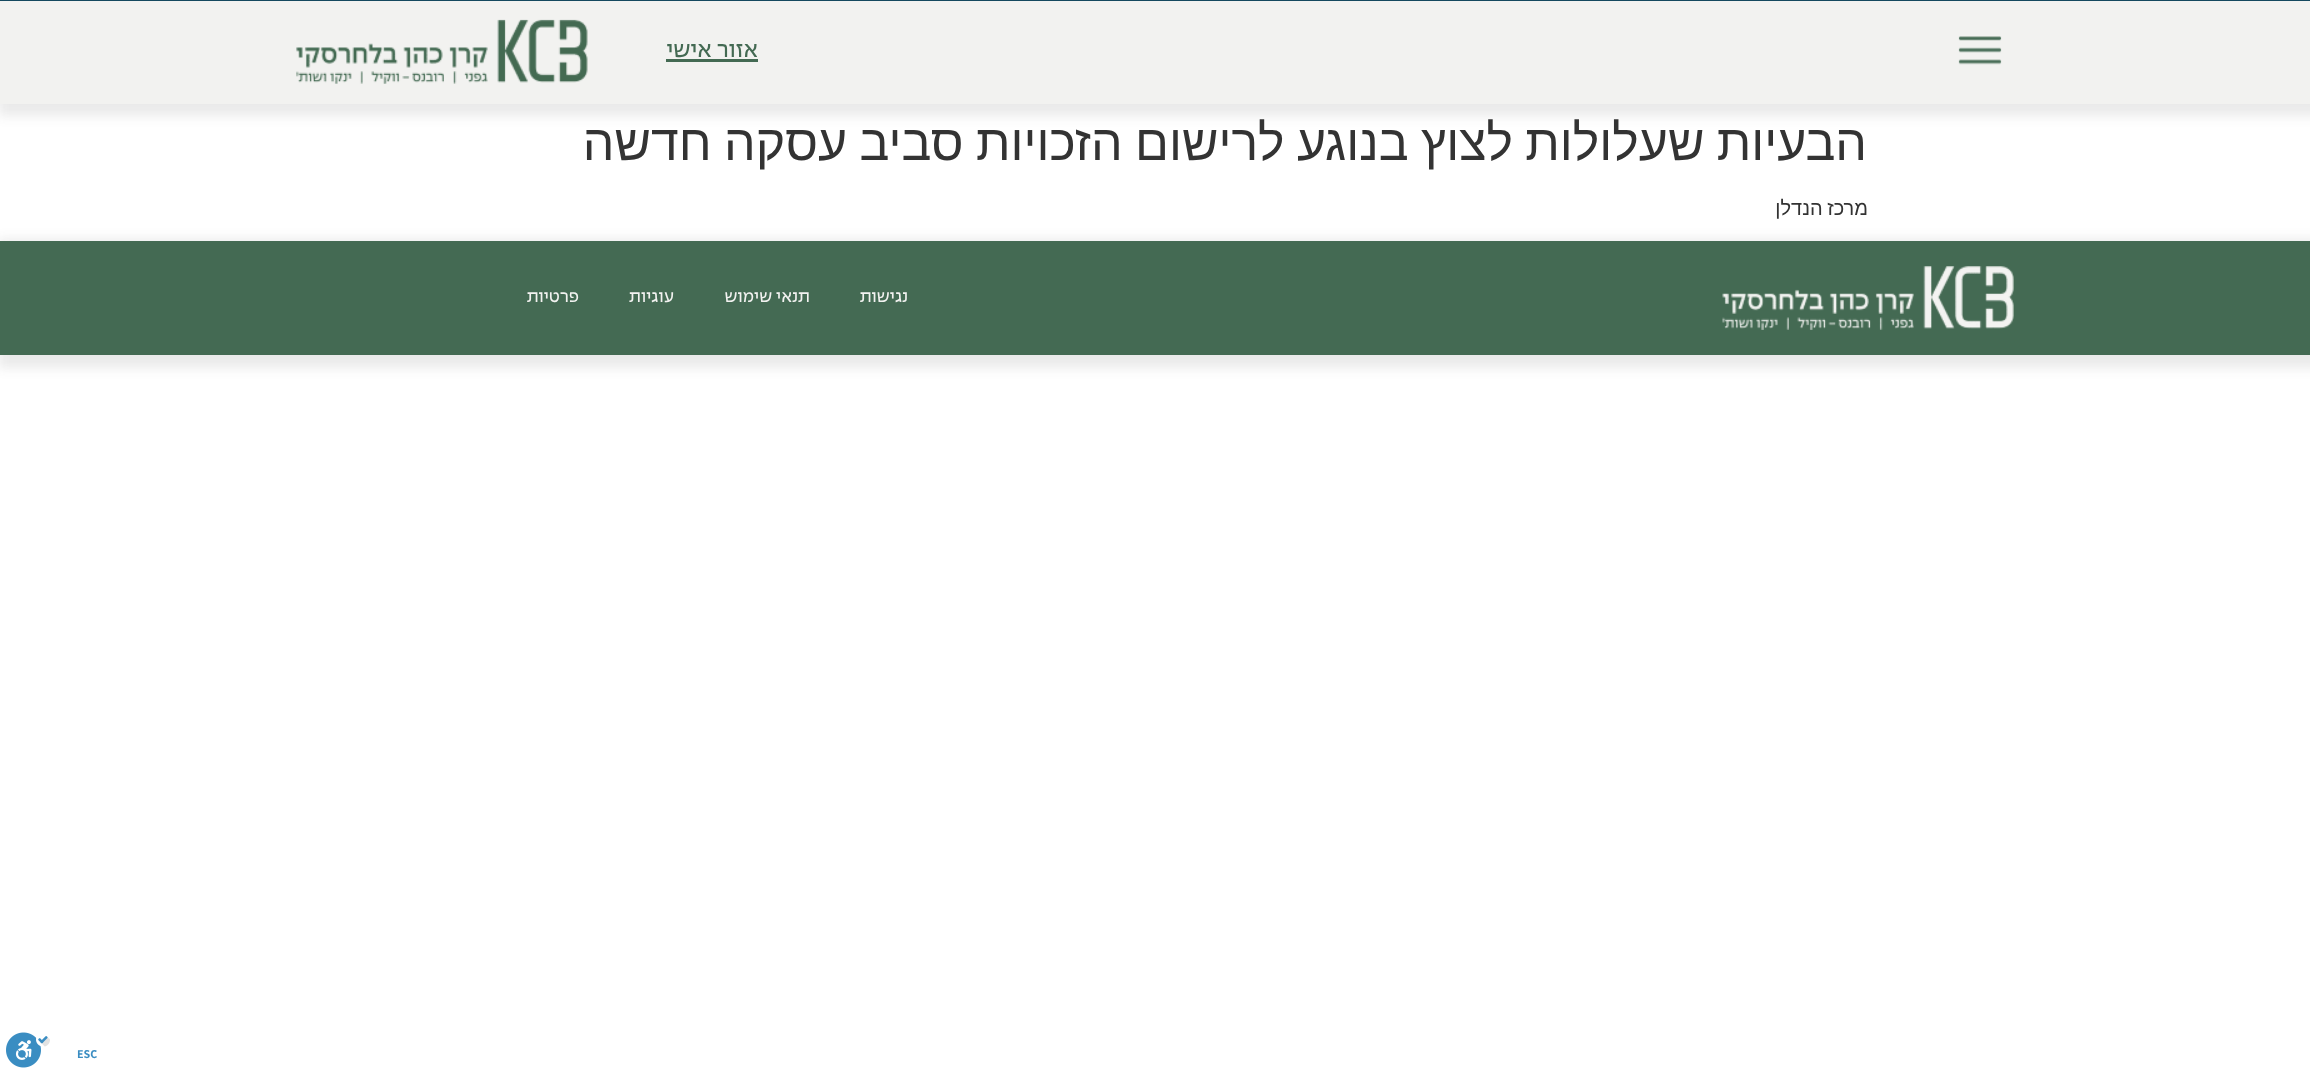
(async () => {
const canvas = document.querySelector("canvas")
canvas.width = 2310
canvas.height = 1076
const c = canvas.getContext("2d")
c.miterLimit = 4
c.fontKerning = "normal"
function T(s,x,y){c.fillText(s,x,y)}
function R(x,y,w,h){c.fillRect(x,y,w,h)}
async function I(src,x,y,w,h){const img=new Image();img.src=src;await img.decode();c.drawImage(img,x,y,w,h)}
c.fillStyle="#fff"
R(0,0,2310,1076)
c.fillStyle="#3434341a"
c.filter="blur(6px)"
c.beginPath()
c.rect(-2,-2,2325,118)
c.fill()
c.filter="none"
c.fillStyle="#f2f2f0"
R(0,1,2310,103)
await I("1.png",1958,36,44,29)
c.direction="rtl"
c.font="25px 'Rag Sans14'"
c.fillStyle="#446a53"
T("אזור אישי",758,57)
R(666,59,92,3)
await I("2.png",296,19,292,65)
c.wordSpacing="-1.5px"
c.font="50px Liberation Sans"
c.fillStyle="#333"
T("הבעיות שעלולות לצוץ בנוגע לרישום הזכויות סביב עסקה חדשה",1867,160)
c.wordSpacing="-1px"
c.font="20px Liberation Sans"
T("מרכז הנדלן",1868,215)
c.fillStyle="#3434341a"
c.filter="blur(6px)"
c.beginPath()
c.rect(-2,239,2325,129)
c.fill()
c.filter="none"
c.fillStyle="#446a53"
R(0,241,2310,114)
await I("3.png",1722,266,292,64)
c.wordSpacing="0px"
c.font="18.75px 'Rag Sans14'"
c.fillStyle="#f2f2f0"
T("נגישות",908,302)
T("תנאי שימוש",810,302)
T("עוגיות",674,302)
T("פרטיות",579,302)
c.fillStyle="#15495f"
R(0,0,2310,1)
c.direction="ltr"
c.font="bold 12px Assistant"
c.fillStyle="#3a8dc2"
T("ESC",77,1058)
await I("4.png",6,1032,44,36)
})()
